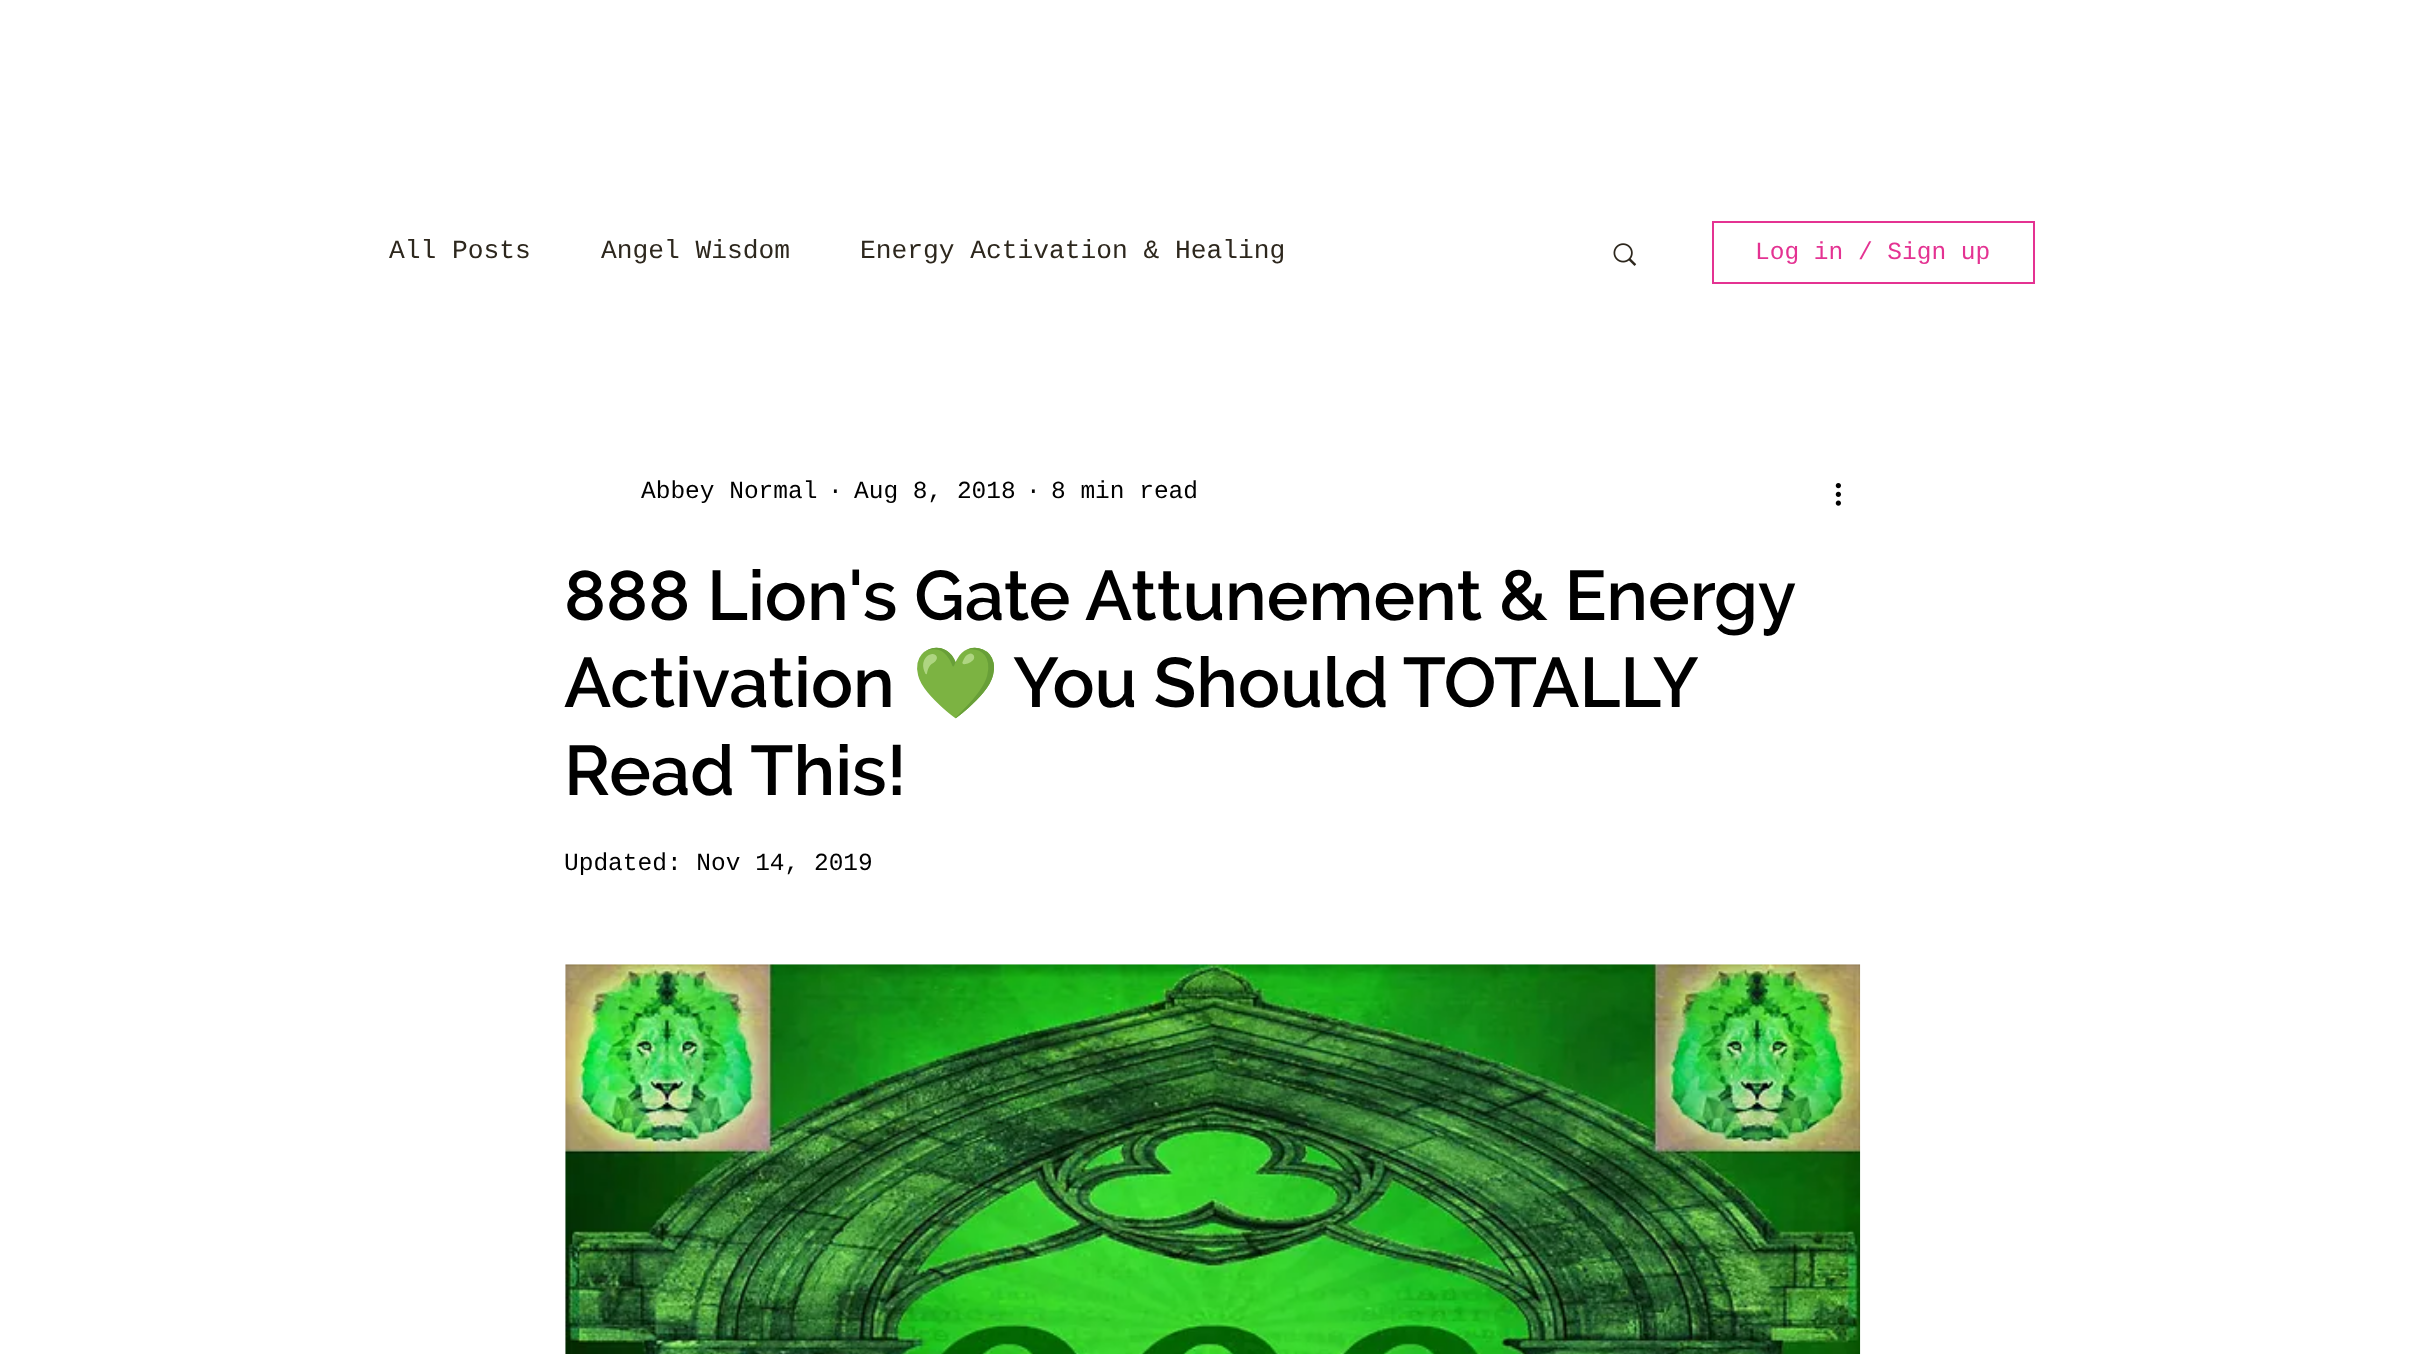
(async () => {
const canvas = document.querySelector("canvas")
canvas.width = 2423
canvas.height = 1354
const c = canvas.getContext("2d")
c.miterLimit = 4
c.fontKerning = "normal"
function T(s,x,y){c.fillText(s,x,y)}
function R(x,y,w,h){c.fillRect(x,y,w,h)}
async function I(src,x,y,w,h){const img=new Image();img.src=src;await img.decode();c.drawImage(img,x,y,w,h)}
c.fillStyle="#fff"
R(0,0,2423,1354)
c.font="26.25px Liberation Mono"
c.fillStyle="#2d271d"
T("All Posts",389,258)
T("Angel Wisdom",601,258)
T("Energy Activation & Healing",860,258)
await I("1.png",1613,243,24,23)
c.strokeStyle="#e43292"
c.lineWidth=2
c.strokeRect(1713,222,321,61)
c.font="24.5px Liberation Mono"
c.fillStyle="#e43292"
T("Log in / Sign up",1755,259)
c.fillStyle="#000"
T("Abbey Normal",641,498)
T("·",828,498)
T("Aug 8, 2018",854,498)
T("·",1026,498)
T("8 min read",1051,498)
await I("2.png",1835,483,6,23)
c.wordSpacing="-0.5px"
c.font="600 70px Raleway"
T("888 Lion's Gate Attunement & Energy",564,620)
c.wordSpacing="0px"
T("Activation",564,707)
c.font="70px Noto Color Emoji"
T("💚",912,707)
c.wordSpacing="-1px"
c.font="600 70px Raleway"
T("You Should TOTALLY",1013,707)
c.wordSpacing="0px"
T("Read This!",564,795)
c.font="24.5px Liberation Mono"
T("Updated: Nov 14, 2019",564,870)
await I("3.png",565,964,1296,390)
})()
